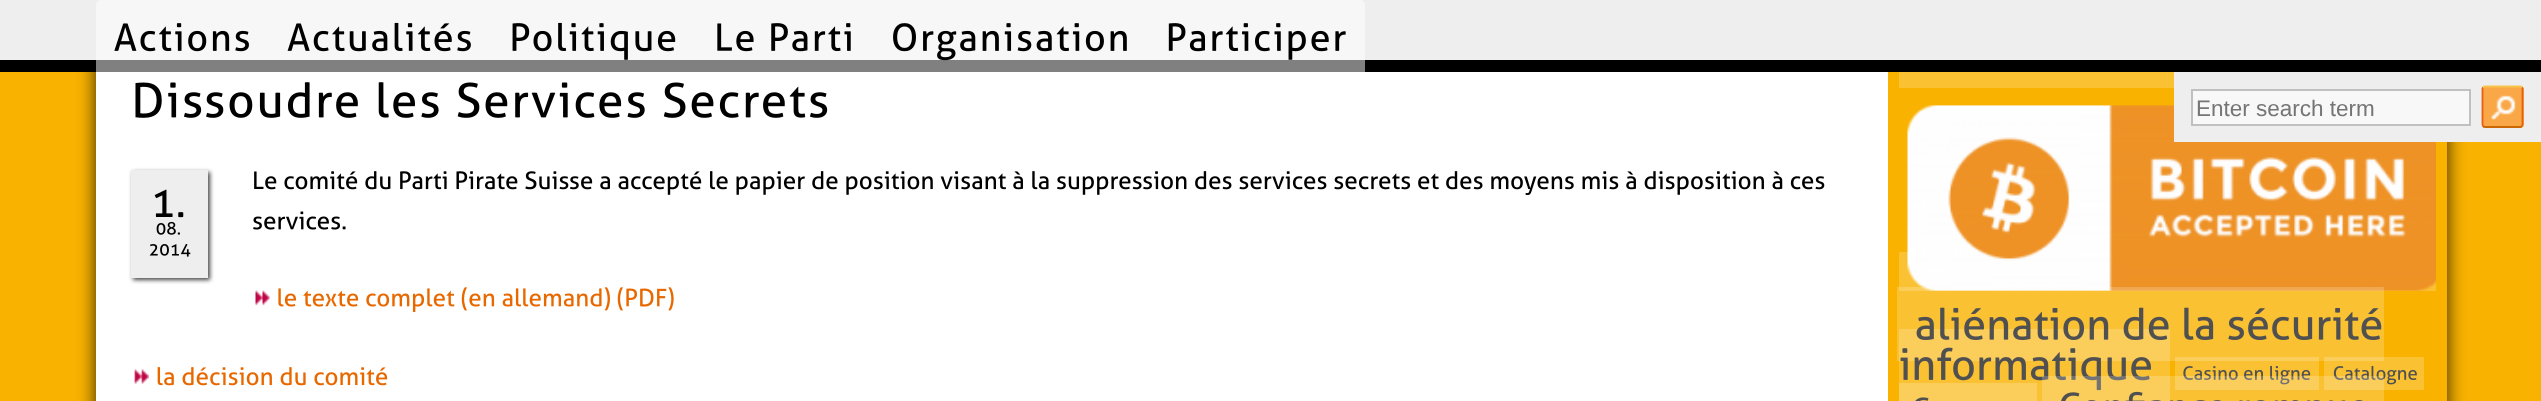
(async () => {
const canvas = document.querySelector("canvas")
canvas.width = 2541
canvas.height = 401
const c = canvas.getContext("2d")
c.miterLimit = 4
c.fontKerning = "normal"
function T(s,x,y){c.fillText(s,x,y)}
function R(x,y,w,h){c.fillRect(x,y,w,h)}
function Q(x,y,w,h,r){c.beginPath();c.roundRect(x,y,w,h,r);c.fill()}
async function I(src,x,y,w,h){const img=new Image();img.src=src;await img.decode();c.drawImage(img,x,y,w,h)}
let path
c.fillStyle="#f9b200"
R(0,0,2541,401)
c.save()
path = new Path2D("M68 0h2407v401h-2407zm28-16h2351v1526h-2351z")
c.clip(path,"evenodd")
c.fillStyle="#000000cc"
c.filter="blur(9px)"
c.beginPath()
c.rect(96,-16,2351,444)
c.fill()
c.filter="none"
c.restore()
c.fillStyle="#f9b20033"
R(2446,72,1,329)
c.fillStyle="#fff"
R(96,72,1792,329)
await I("1.png",135,82,693,36)
c.fillStyle="#444"
c.filter="blur(2px)"
c.beginPath()
c.rect(133,172,77,108)
c.fill()
c.filter="none"
c.fillStyle="#eee"
R(131,170,77,108)
await I("2.png",154,189,30,29)
await I("3.png",156,221,24,14)
await I("4.png",149,244,42,13)
await I("5.png",254,171,1571,24)
await I("6.png",253,211,93,19)
await I("7.png",255,290,15,16)
await I("8.png",278,287,332,26)
await I("9.png",617,287,57,24)
await I("10.png",134,369,15,15)
await I("11.png",157,367,231,19)
c.fillStyle="#fac133"
R(1899,72,275,16)
R(1899,252,537,39)
await I("12.png",1907,105,529,186)
c.fillStyle="#ffffff33"
R(1897,287,487,74)
R(1899,329,271,72)
await I("13.png",1916,307,466,33)
await I("14.png",1900,347,251,44)
R(2175,357,144,33)
R(2324,357,100,33)
await I("15.png",2183,366,128,19)
await I("16.png",2333,366,84,19)
c.fillStyle="#fbce5c"
R(1899,383,138,18)
c.fillStyle="#ffffff33"
R(2042,376,342,25)
await I("17.png",1915,397,14,4)
await I("18.png",2061,391,302,10)
c.fillStyle="#eee"
R(0,0,2541,60)
c.fillStyle="#000"
R(0,60,2541,12)
c.fillStyle="#ffffff80"
c.beginPath()
c.roundRect(96,0,1269,72,[5,5,0,0])
c.fill()
await I("19.png",114,23,135,29)
await I("20.png",287,22,184,30)
await I("21.png",512,22,164,38)
await I("22.png",717,23,134,29)
await I("23.png",893,23,234,38)
await I("24.png",1168,23,178,37)
c.fillStyle="#eee"
R(2174,72,367,70)
c.fillStyle="#f8f8f8"
c.beginPath()
c.rect(2192,90,278,35)
c.fill()
c.strokeStyle="#c0c0c0"
c.lineWidth=2
c.stroke()
c.font="22.5px Liberation Sans"
c.fillStyle="#757575"
T("Enter search term",2196,116)
c.fillStyle="#faa747"
Q(2482,86,42,42,4)
await I("25.png",2491,95,25,25)
path = new Path2D("M2483 87.5c.5-.5 1.5-1 2-1h35c.5 0 1.5 .5 2 1")
c.strokeStyle="#f7c34a"
c.lineWidth=1.8
c.stroke(path)
path = new Path2D("M2522 87.5c.5 .5 .5 1 .5 1.5v35c0 1 0 1.5-.5 2")
c.strokeStyle="#e95e0f"
c.stroke(path)
path = new Path2D("M2522 126c-.5 .5-1.5 1-2 1h-35c-.5 0-1.5-.5-2-1")
c.strokeStyle="#cc6804"
c.stroke(path)
path = new Path2D("M2483 126c-.5-.5-.5-1-.5-2v-35c0-.5 0-1 .5-1.5")
c.strokeStyle="#e95e0f"
c.stroke(path)
})()
